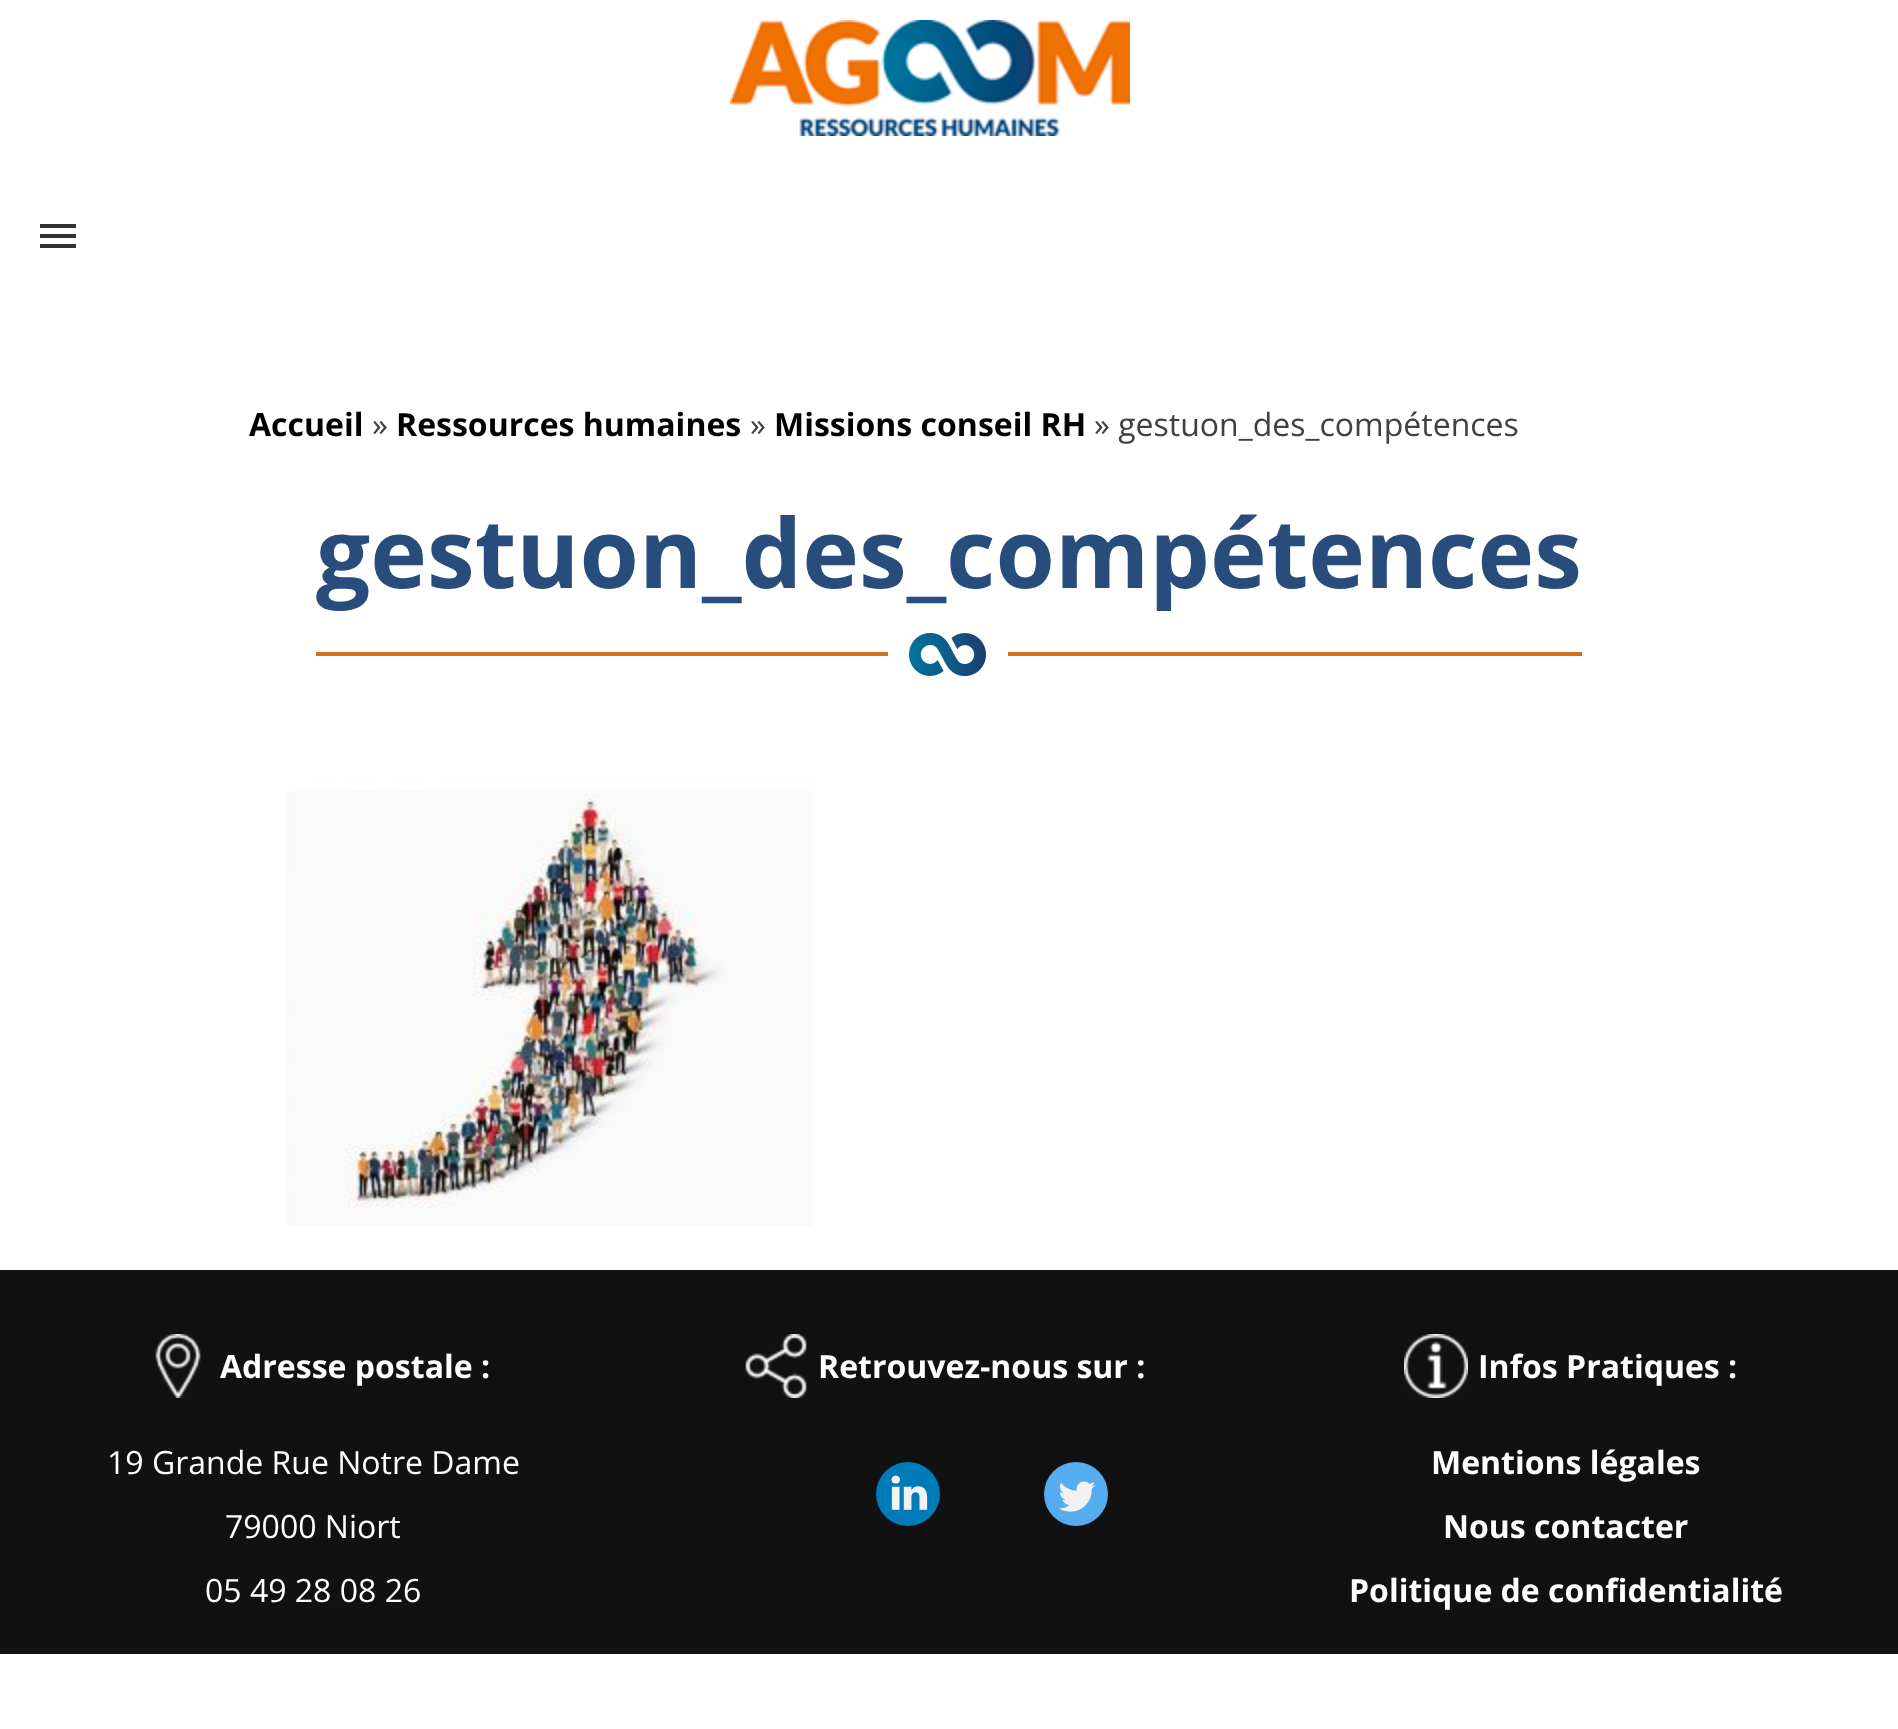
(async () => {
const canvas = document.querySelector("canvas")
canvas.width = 1898
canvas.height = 1729
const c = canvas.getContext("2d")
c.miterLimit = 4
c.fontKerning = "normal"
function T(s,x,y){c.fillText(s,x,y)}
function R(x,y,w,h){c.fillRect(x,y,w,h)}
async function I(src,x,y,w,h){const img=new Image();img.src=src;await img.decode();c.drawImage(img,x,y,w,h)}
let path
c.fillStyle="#fff"
R(0,0,1898,1729)
await I("1.png",730,20,400,116)
c.fillStyle="#333"
path = new Path2D("M40 224h36v4h-36zm0 14v-4h36v4zm0 10v-4h36v4z")
c.fill(path)
c.font="bold 32px Open Sans"
c.fillStyle="#000"
T("Accueil",249,436)
c.font="32px Open Sans"
c.fillStyle="#404040"
T("»",372,436)
c.font="bold 32px Open Sans"
c.fillStyle="#000"
T("Ressources humaines",396,436)
c.font="32px Open Sans"
c.fillStyle="#404040"
T("»",750,436)
c.font="bold 32px Open Sans"
c.fillStyle="#000"
T("Missions conseil RH",774,436)
c.font="32px Open Sans"
c.fillStyle="#404040"
T("» gestuon_des_compétences",1094,436)
c.font="bold 96px Open Sans"
c.fillStyle="#284c7b"
T("gestuon_des_compétences",316,588)
c.fillStyle="#d3711c"
R(316,652,1266,4)
c.fillStyle="#fff"
R(888,652,120,4)
await I("2.png",909,633,77,43)
await I("3.png",287,776,525,450)
c.fillStyle="#111"
R(0,1270,1898,384)
await I("4.png",155,1334,46,64)
c.font="bold 32px Open Sans"
c.fillStyle="#fff"
T("Adresse postale :",220,1378)
c.font="32px Open Sans"
T("19 Grande Rue Notre Dame",107,1474)
T("79000 Niort",225,1538)
T("05 49 28 08 26",205,1602)
await I("5.png",745,1334,63,64)
c.font="bold 32px Open Sans"
T("Retrouvez-nous sur :",818,1378)
await I("6.png",876,1462,64,64)
await I("7.png",1044,1462,64,64)
await I("8.png",1404,1334,64,64)
T("Infos Pratiques :",1478,1378)
T("Mentions légales",1431,1474)
T("Nous contacter",1443,1538)
T("Politique de confidentialité",1349,1602)
})()
